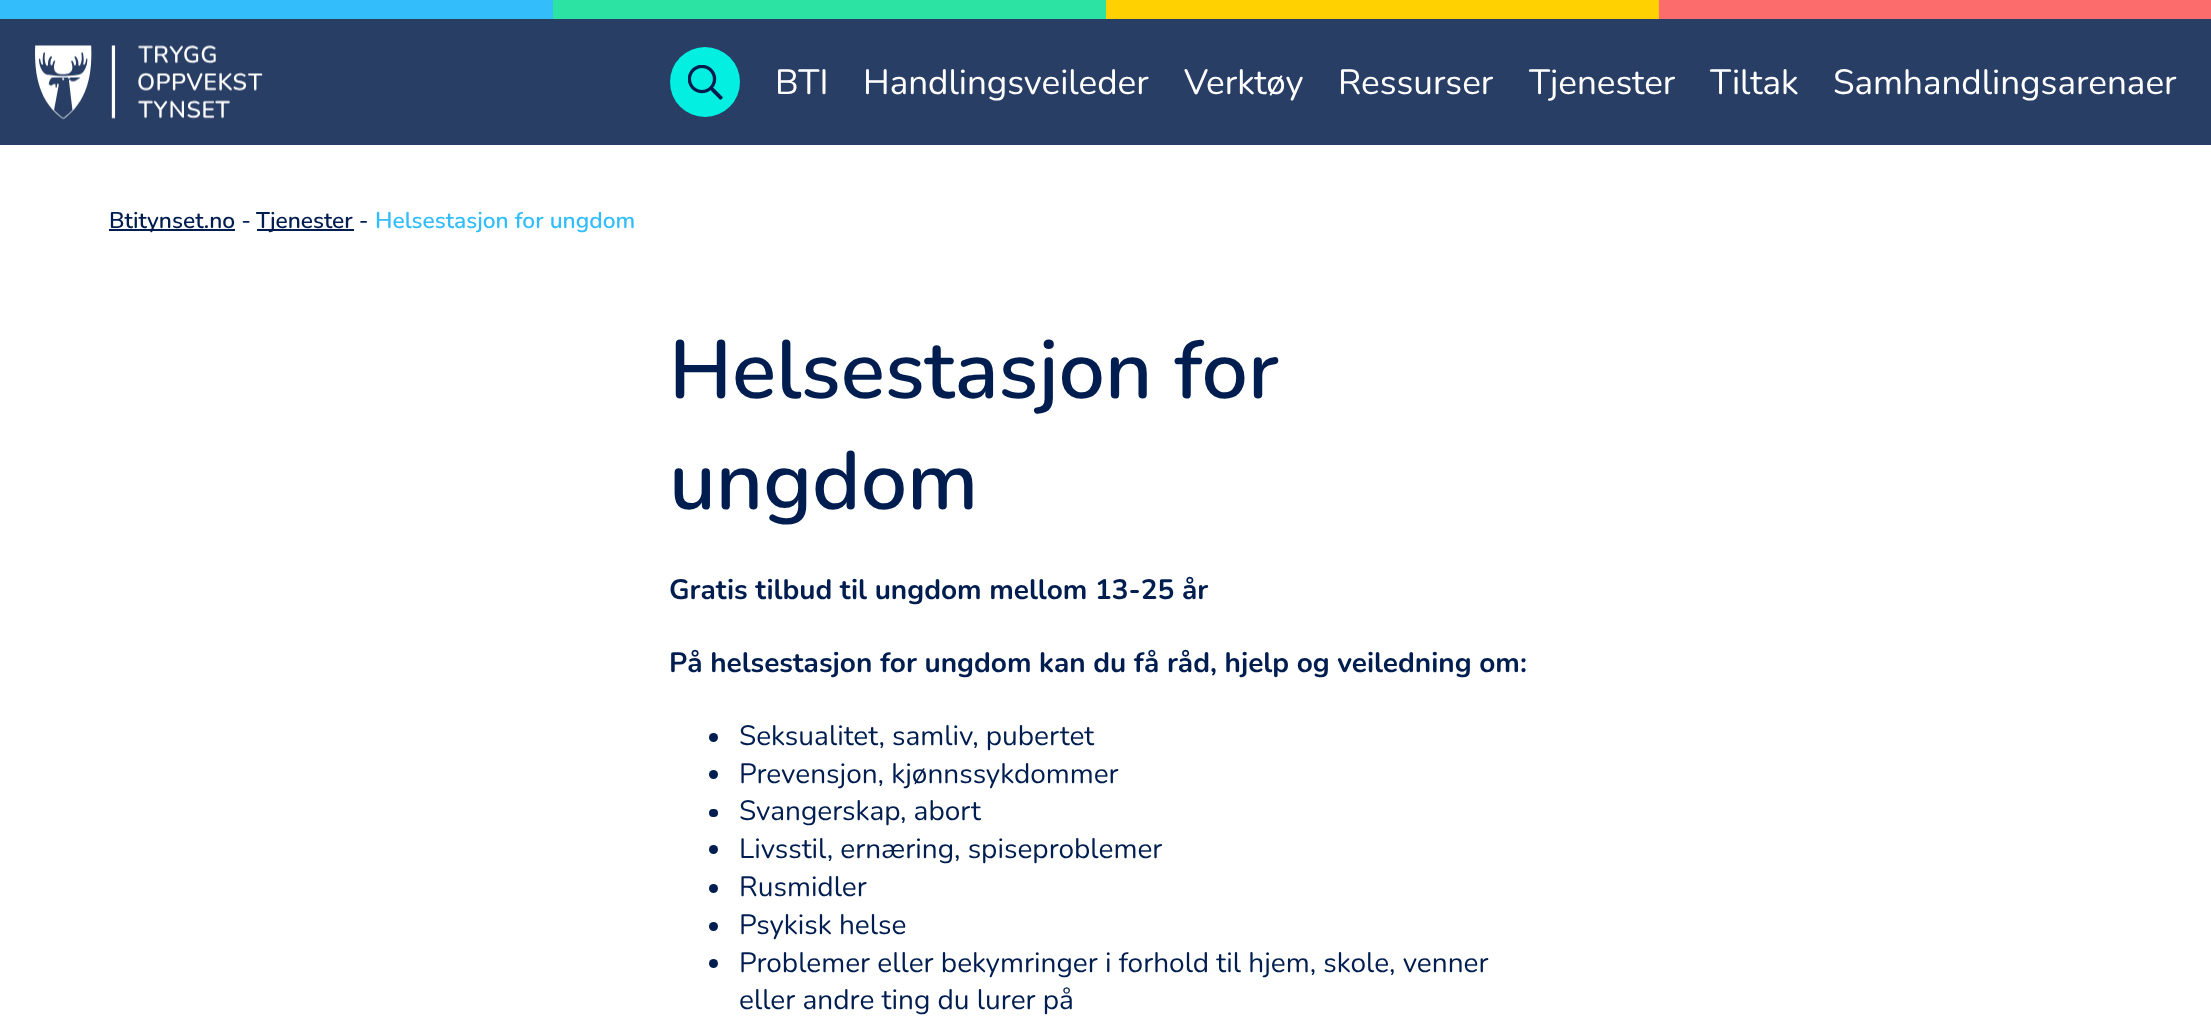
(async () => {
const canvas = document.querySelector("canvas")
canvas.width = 2211
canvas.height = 1017
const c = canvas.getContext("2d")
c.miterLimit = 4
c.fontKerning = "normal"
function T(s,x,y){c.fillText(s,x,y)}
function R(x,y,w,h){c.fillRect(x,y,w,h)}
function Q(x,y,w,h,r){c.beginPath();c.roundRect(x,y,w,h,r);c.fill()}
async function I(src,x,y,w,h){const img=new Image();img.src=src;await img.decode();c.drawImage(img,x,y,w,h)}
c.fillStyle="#fff"
R(0,0,2211,1017)
c.fillStyle="#33bdfa"
R(0,0,553,19)
c.fillStyle="#2ce3a4"
R(553,0,553,19)
c.fillStyle="#ffd100"
R(1106,0,553,19)
c.fillStyle="#fc6c6c"
R(1659,0,552,19)
c.fillStyle="#293e65"
R(0,19,2211,126)
await I("1.png",35,45,228,75)
c.beginPath()
c.arc(705,82,34,0,7)
c.strokeStyle="#0000001a"
c.lineWidth=2
c.stroke()
c.fillStyle="#02efe2"
c.beginPath()
c.arc(705,82,35,0,7)
c.fill()
await I("2.png",688,65,35,35)
c.font="35px Nunito"
c.fillStyle="#fff"
T("BTI",775,94)
T("Handlingsveileder",863,94)
T("Verktøy",1184,94)
T("Ressurser",1338,94)
T("Tjenester",1529,94)
T("Tiltak",1710,94)
T("Samhandlingsarenaer",1833,94)
c.fillStyle="#001d4f"
R(109,229,126,2)
c.font="600 22.75px Nunito"
T("Btitynset.no -",109,228)
R(257,229,97,2)
T("Tjenester -",256,228)
c.fillStyle="#33bdfa"
T("Helsestasjon for ungdom",375,228)
c.font="600 82.25px Nunito"
c.fillStyle="#001d4f"
T("Helsestasjon for",669,398)
T("ungdom",669,509)
c.font="bold 28px Nunito"
T("Gratis tilbud til ungdom mellom 13-25 år",669,599)
T("På helsestasjon for ungdom kan du få råd, hjelp og veiledning om:",669,672)
c.beginPath()
c.arc(713.5,737.5,4.5,0,7)
c.fill()
c.font="28px Nunito"
T("Seksualitet, samliv, pubertet",739,745)
c.beginPath()
c.arc(713.5,774.5,4.5,0,7)
c.fill()
T("Prevensjon, kjønnssykdommer",739,783)
Q(709,809,9,8,4)
T("Svangerskap, abort",739,820)
c.beginPath()
c.arc(713.5,849.5,4.5,0,7)
c.fill()
T("Livsstil, ernæring, spiseproblemer",739,858)
c.beginPath()
c.arc(713.5,888.5,4.5,0,7)
c.fill()
T("Rusmidler",739,896)
c.beginPath()
c.arc(713.5,926.5,4.5,0,7)
c.fill()
T("Psykisk helse",739,934)
c.beginPath()
c.arc(713.5,963.5,4.5,0,7)
c.fill()
T("Problemer eller bekymringer i forhold til hjem, skole, venner",739,972)
T("eller andre ting du lurer på",739,1009)
})()
